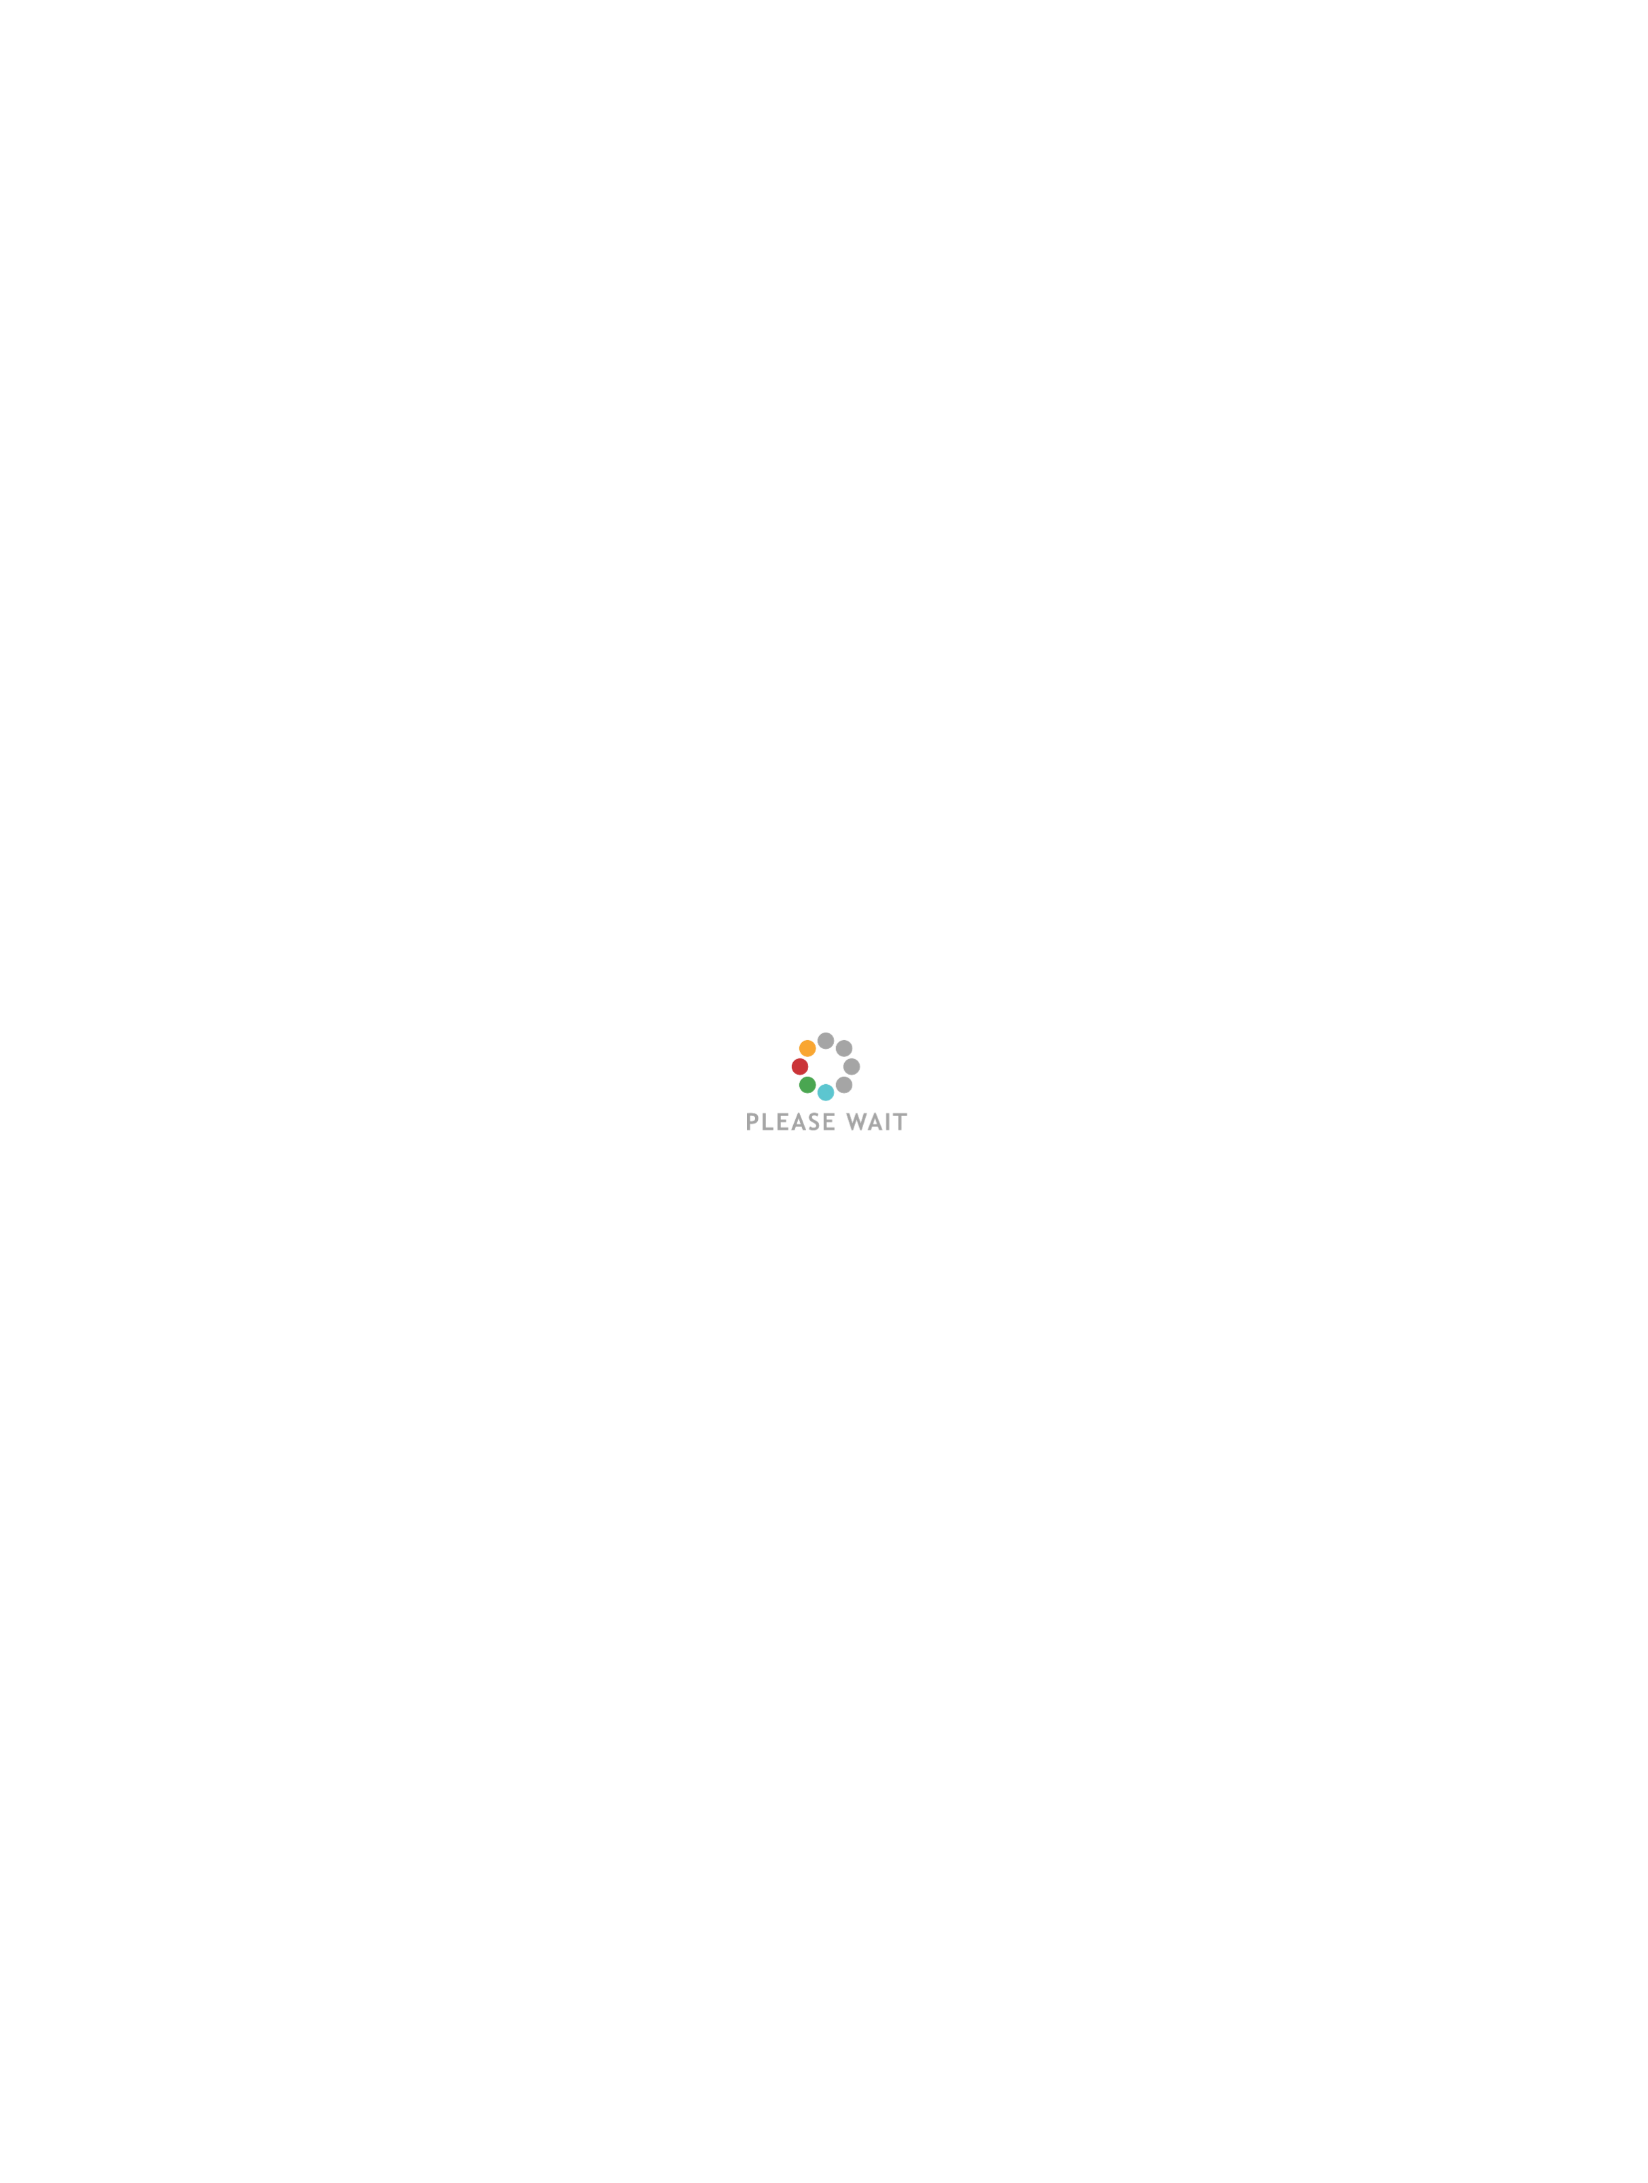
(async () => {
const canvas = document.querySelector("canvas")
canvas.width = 1648
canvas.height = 2183
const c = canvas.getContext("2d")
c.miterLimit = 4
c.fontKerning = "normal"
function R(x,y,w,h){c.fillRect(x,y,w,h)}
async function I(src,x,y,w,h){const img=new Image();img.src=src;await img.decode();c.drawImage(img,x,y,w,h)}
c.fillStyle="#fff"
R(0,0,1648,2183)
await I("1.png",747,1032,161,99)
})()
